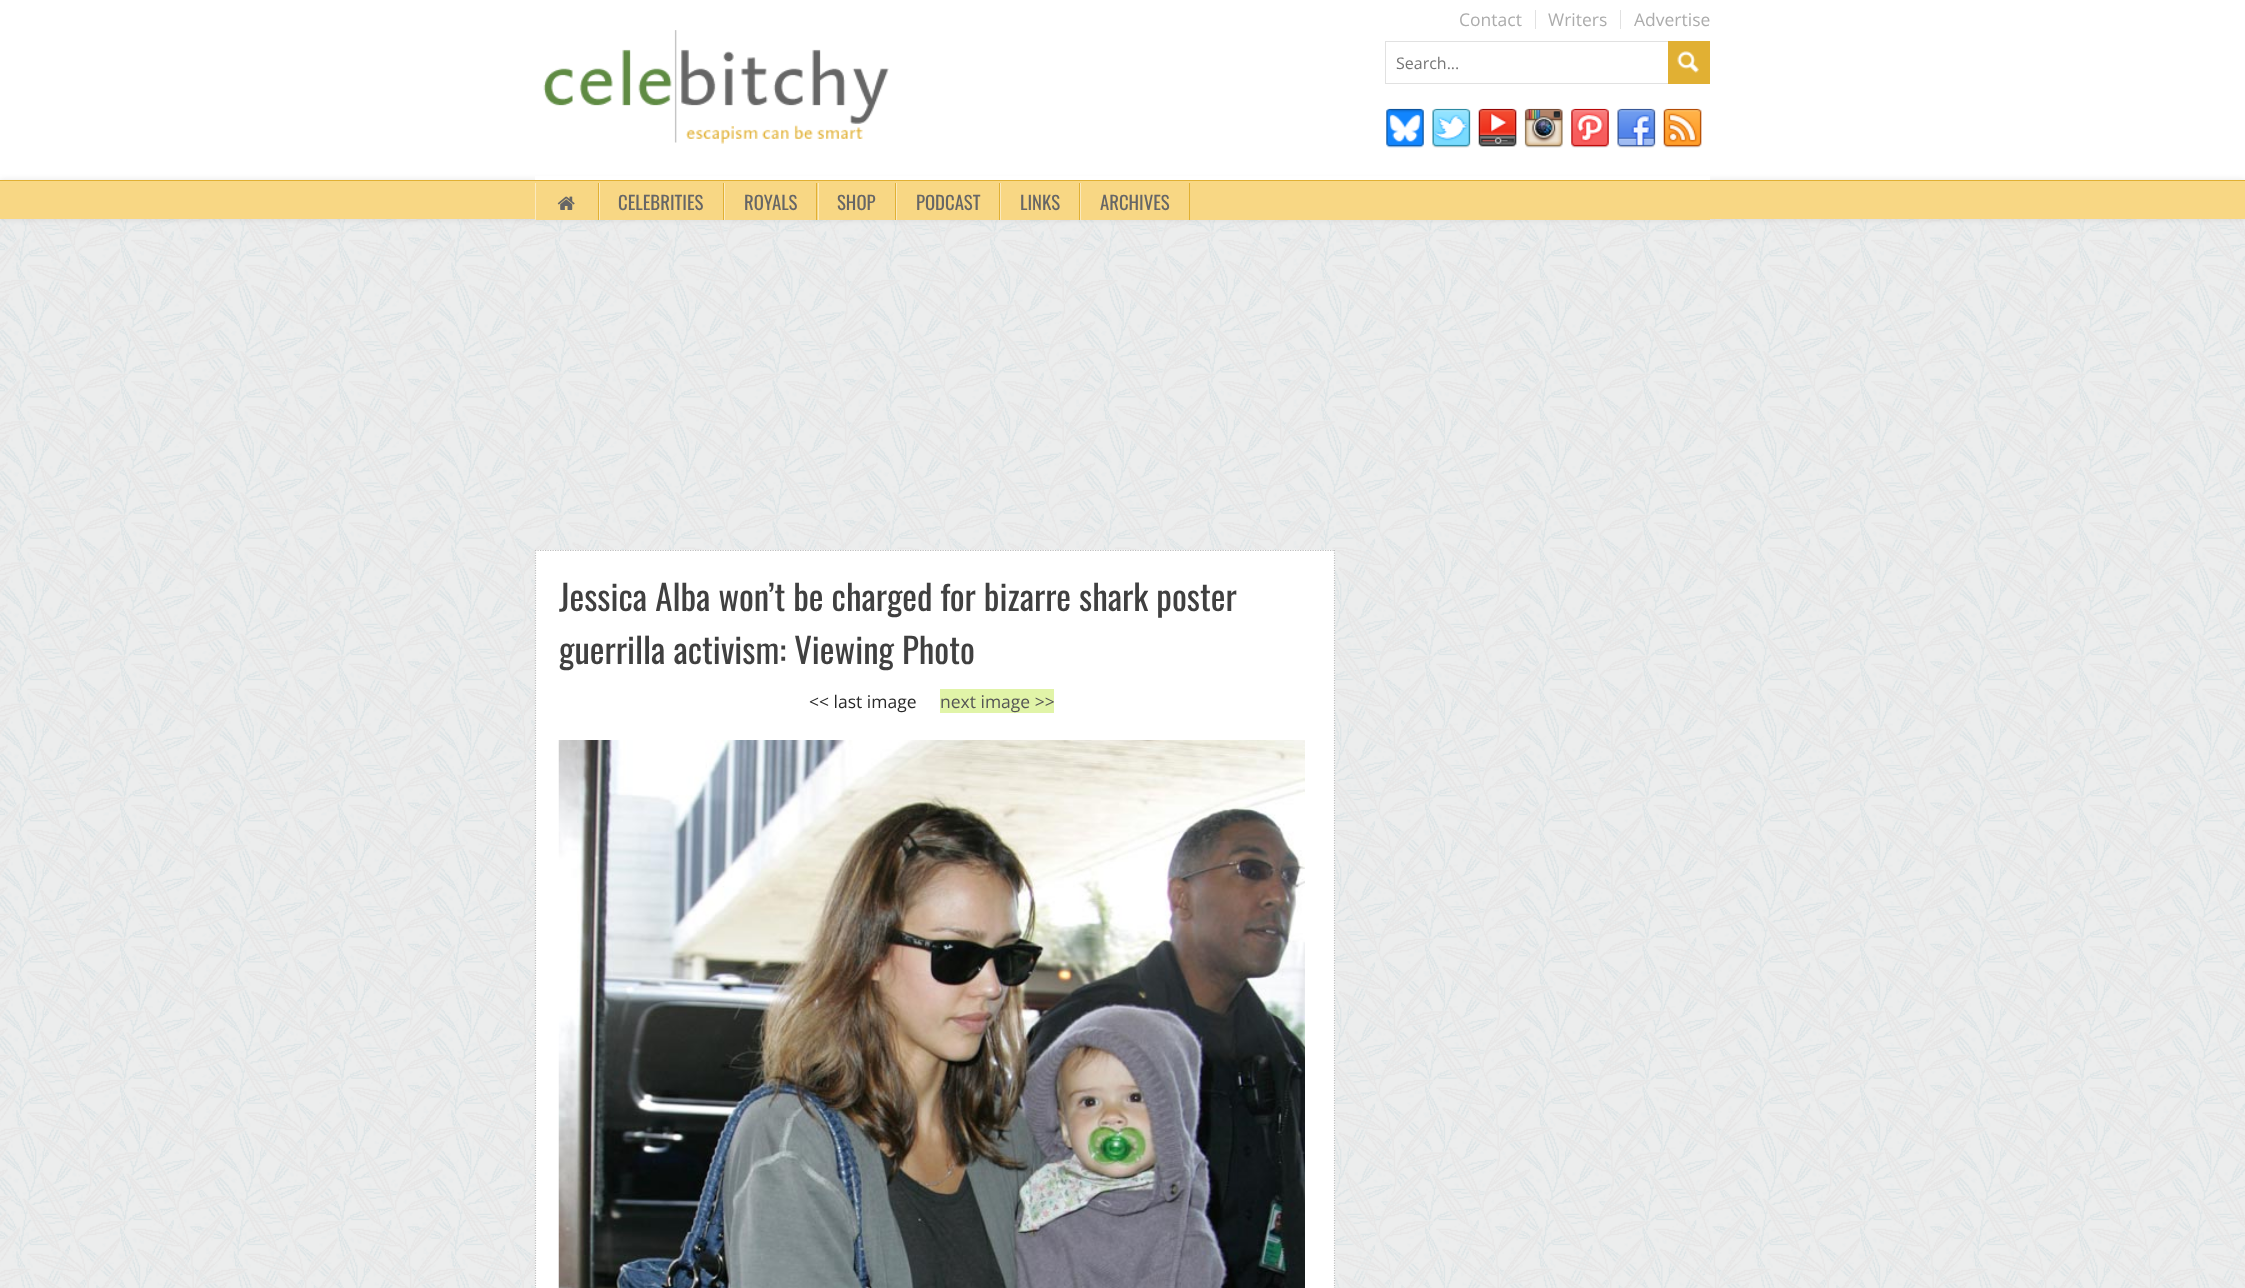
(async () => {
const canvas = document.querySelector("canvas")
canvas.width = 2245
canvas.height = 1288
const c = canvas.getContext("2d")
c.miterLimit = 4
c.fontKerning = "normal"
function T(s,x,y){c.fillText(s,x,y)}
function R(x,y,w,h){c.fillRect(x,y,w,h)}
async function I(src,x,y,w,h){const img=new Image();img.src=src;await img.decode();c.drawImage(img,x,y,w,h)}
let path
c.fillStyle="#fff"
R(0,0,2245,1288)
await I("1.png",0,219,2245,1069)
c.fillStyle="#0000001a"
c.filter="blur(3px)"
c.beginPath()
c.rect(0,180,2245,39)
c.fill()
c.filter="none"
c.fillStyle="#fff"
R(535,176,1175,4)
c.fillStyle="#e1e1e1"
R(1535,10,1,19)
c.font="17.5px Open Sans"
c.fillStyle="#acacac"
T("Contact",1459,26)
c.fillStyle="#e1e1e1"
R(1620,10,1,19)
c.fillStyle="#acacac"
T("Writers",1548,26)
T("Advertise",1634,26)
await I("2.png",543,30,346,114)
c.strokeStyle="#e1e1e1"
c.strokeRect(1385.5,41.5,324,42)
c.font="16px Open Sans"
c.fillStyle="#757575"
T("Search...",1396,69)
c.fillStyle="#e1b033"
R(1668,41,42,43)
await I("3.png",1677,51,22,22)
await I("4.png",1386,108,38,40)
await I("5.png",1432,108,39,40)
await I("6.png",1478,108,39,39)
await I("7.png",1524,108,39,40)
await I("8.png",1571,108,38,40)
await I("9.png",1617,108,39,40)
await I("10.png",1663,108,39,40)
c.fillStyle="#f8d784"
R(0,181,2245,38)
c.fillStyle="#e1b033"
R(0,180,2245,1)
c.fillStyle="#f8d784"
R(535,219,1175,1)
c.fillStyle="#e1b033"
R(598,183,1,37)
c.fillStyle="#fbeabe"
R(535,183,1,37)
await I("11.png",557,196,18,14)
c.fillStyle="#e1b033"
R(723,183,1,37)
c.fillStyle="#fbeabe"
R(599,183,1,37)
c.font="18.75px Oswald"
c.fillStyle="#666"
T("CELEBRITIES",618,210)
c.fillStyle="#e1b033"
R(816,183,1,37)
c.fillStyle="#fbeabe"
R(724,183,1,37)
c.fillStyle="#666"
T("ROYALS",744,210)
c.fillStyle="#e1b033"
R(895,183,1,37)
c.fillStyle="#fbeabe"
R(818,183,1,37)
c.fillStyle="#666"
T("SHOP",837,210)
c.fillStyle="#e1b033"
R(999,183,1,37)
c.fillStyle="#fbeabe"
R(896,183,1,37)
c.fillStyle="#666"
T("PODCAST",916,210)
c.fillStyle="#e1b033"
R(1079,183,1,37)
c.fillStyle="#fbeabe"
R(1000,183,1,37)
c.fillStyle="#666"
T("LINKS",1020,210)
c.fillStyle="#e1b033"
R(1189,183,1,37)
c.fillStyle="#fbeabe"
R(1080,183,1,37)
c.fillStyle="#666"
T("ARCHIVES",1100,210)
c.fillStyle="#fff"
R(535,550,800,738)
path = new Path2D("M535 550.5h800")
c.strokeStyle="#bebebe"
c.lineWidth=1.2
c.setLineDash([1.25,1.25])
c.stroke(path)
path = new Path2D("M1334.5 550v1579")
c.stroke(path)
path = new Path2D("M535.5 550v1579")
c.stroke(path)
c.font="35px Oswald"
c.fillStyle="#404040"
T("Jessica Alba won’t be charged for bizarre shark poster",559,611)
T("guerrilla activism: Viewing Photo",559,664)
c.font="17.5px Open Sans"
c.fillStyle="#292929"
T("<< last image",809,708)
c.fillStyle="#e1f4a8"
R(940,689,114,24)
c.fillStyle="#555"
T("next image >>",940,708)
await I("12.png",558,740,747,548)
})()
